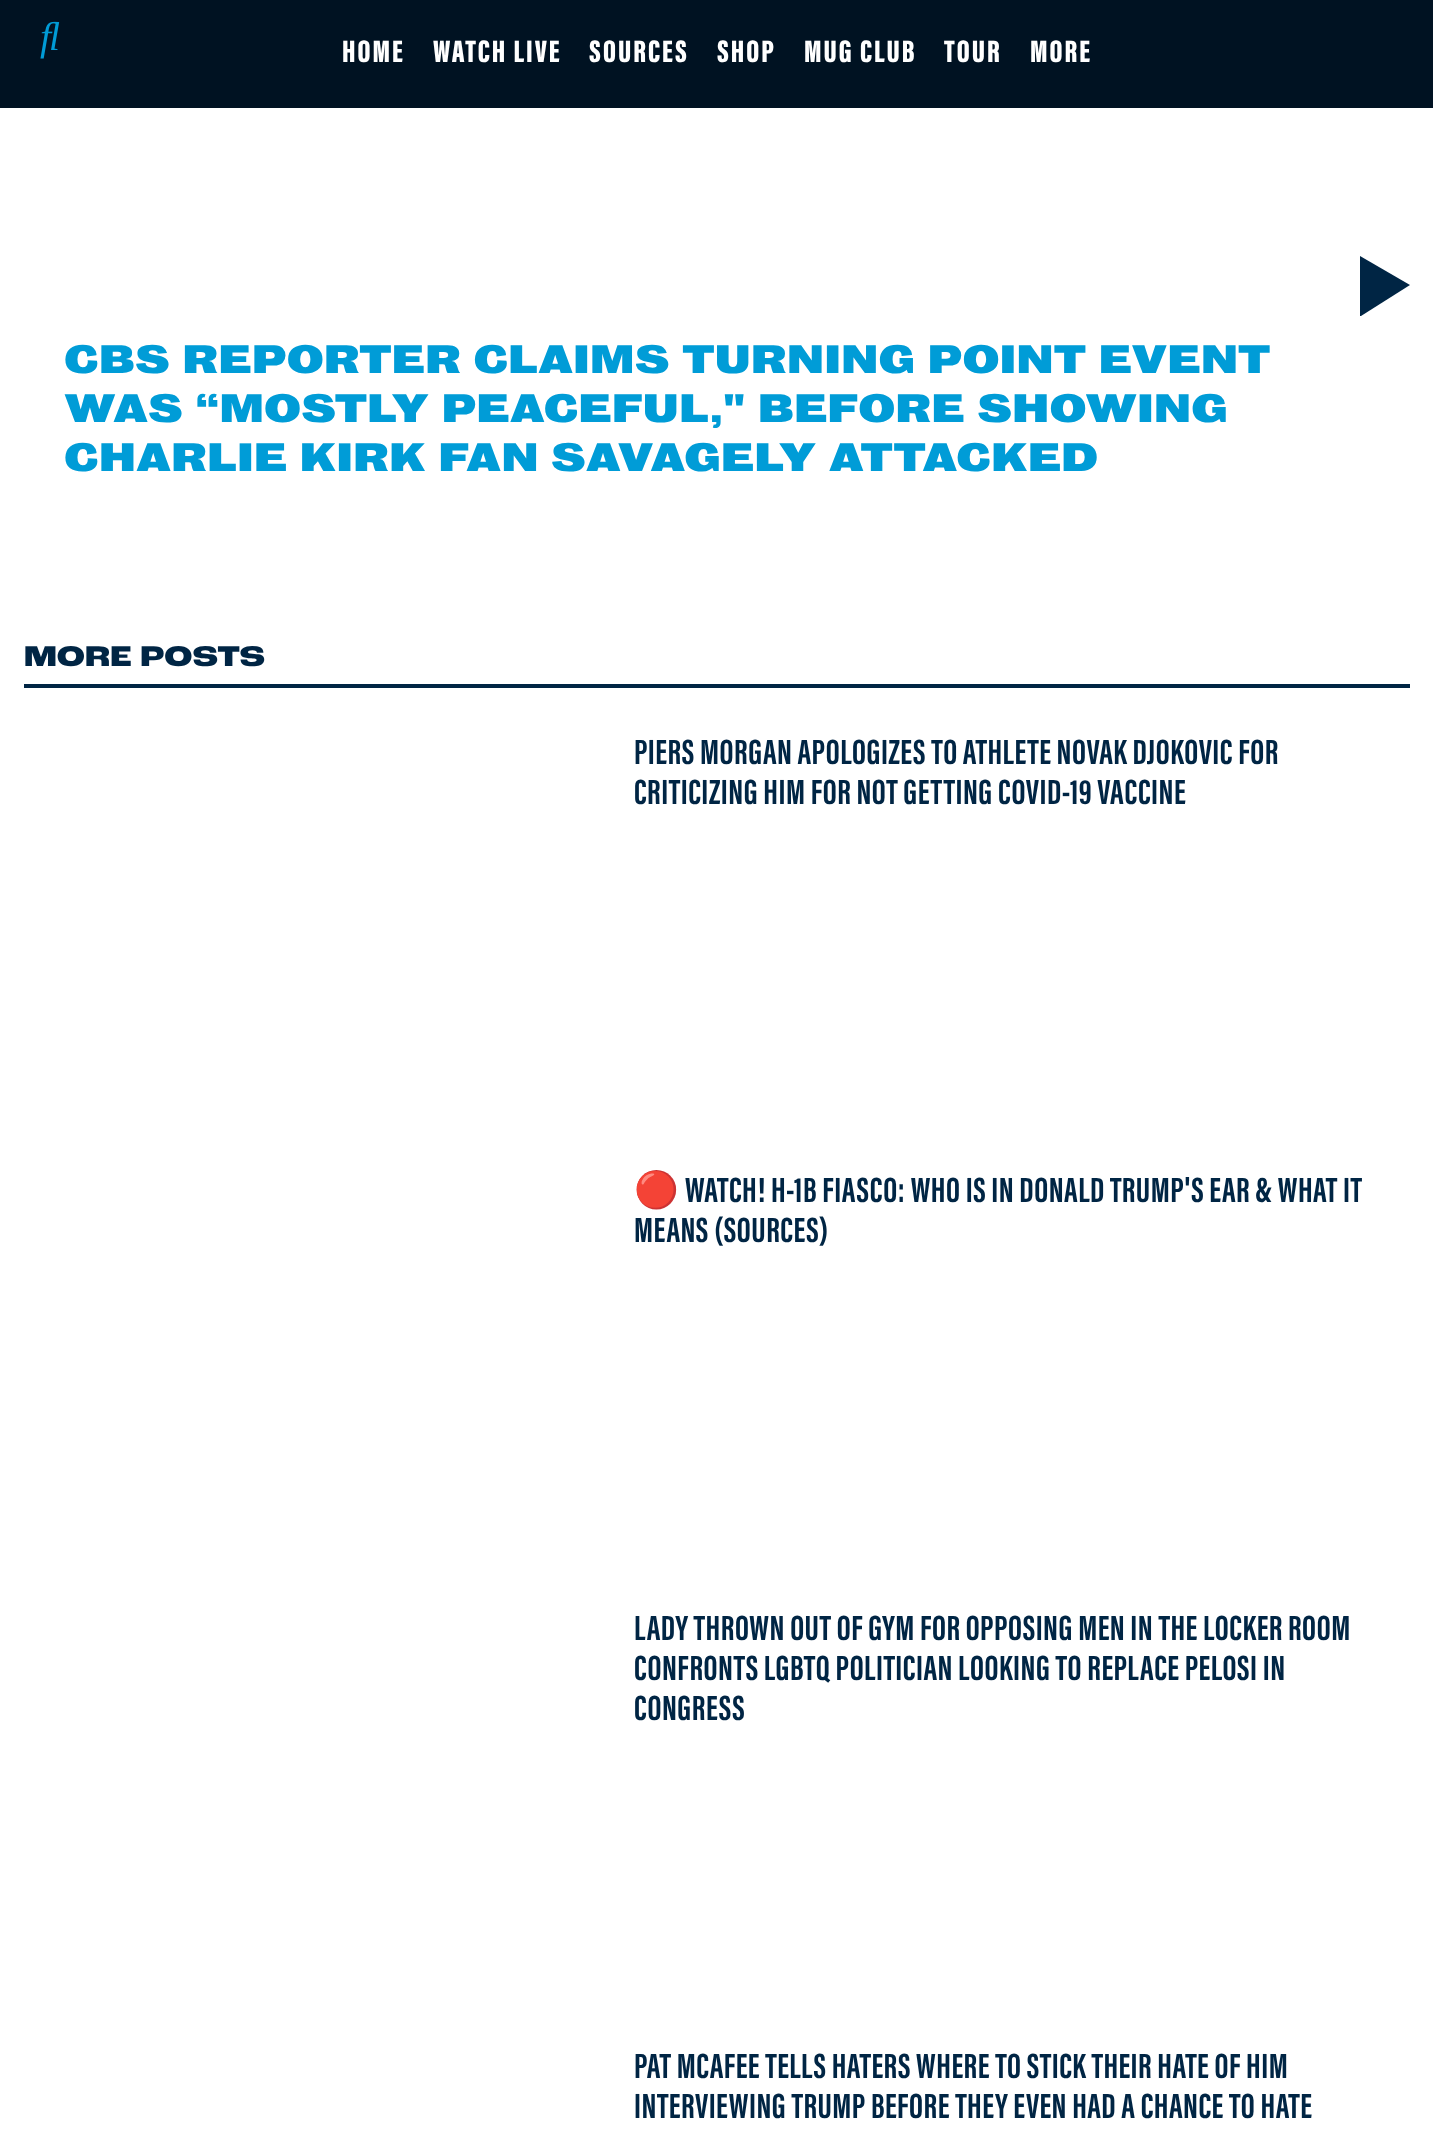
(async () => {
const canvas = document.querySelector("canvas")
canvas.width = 1433
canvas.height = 2153
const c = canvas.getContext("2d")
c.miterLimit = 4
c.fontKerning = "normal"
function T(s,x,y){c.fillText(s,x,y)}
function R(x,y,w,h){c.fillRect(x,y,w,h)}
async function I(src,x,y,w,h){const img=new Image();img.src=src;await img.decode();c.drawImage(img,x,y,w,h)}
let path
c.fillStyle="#fff"
R(0,0,1433,2153)
c.fillStyle="#001222"
R(0,0,1433,108)
await I("1.png",40,21,20,38)
c.letterSpacing="2px"
c.font="900 32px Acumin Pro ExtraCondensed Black"
c.fillStyle="#fff"
T("HOME",342,62)
T("WATCH LIVE",433,62)
T("SOURCES",589,62)
T("SHOP",717,62)
T("MUG CLUB",804,62)
T("TOUR",944,62)
T("MORE",1030,62)
c.fillStyle="#002544"
path = new Path2D("M1410 285l-50-29v60h1z")
c.fill(path)
c.letterSpacing="0px"
c.font="900 36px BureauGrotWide"
c.fillStyle="#009cd7"
T("CBS REPORTER CLAIMS TURNING POINT EVENT",64,373)
T("WAS “MOSTLY PEACEFUL,\" BEFORE SHOWING",64,422)
T("CHARLIE KIRK FAN SAVAGELY ATTACKED",64,471)
c.fillStyle="#002544"
R(24,684,1386,4)
c.font="800 30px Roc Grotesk"
T("MORE POSTS",24,666)
c.letterSpacing="0.5px"
c.font="bold 36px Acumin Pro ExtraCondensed"
T("PIERS MORGAN APOLOGIZES TO ATHLETE NOVAK DJOKOVIC FOR",634,764)
T("CRITICIZING HIM FOR NOT GETTING COVID-19 VACCINE",634,804)
c.font="bold 36px Noto Color Emoji"
T("🔴",634,1202)
c.font="bold 36px Acumin Pro ExtraCondensed"
T("WATCH! H-1B FIASCO: WHO IS IN DONALD TRUMP'S EAR & WHAT IT",685,1202)
T("MEANS (SOURCES)",634,1242)
T("LADY THROWN OUT OF GYM FOR OPPOSING MEN IN THE LOCKER ROOM",634,1640)
T("CONFRONTS LGBTQ POLITICIAN LOOKING TO REPLACE PELOSI IN",634,1680)
T("CONGRESS",634,1720)
T("PAT MCAFEE TELLS HATERS WHERE TO STICK THEIR HATE OF HIM",634,2078)
T("INTERVIEWING TRUMP BEFORE THEY EVEN HAD A CHANCE TO HATE",634,2118)
})()
